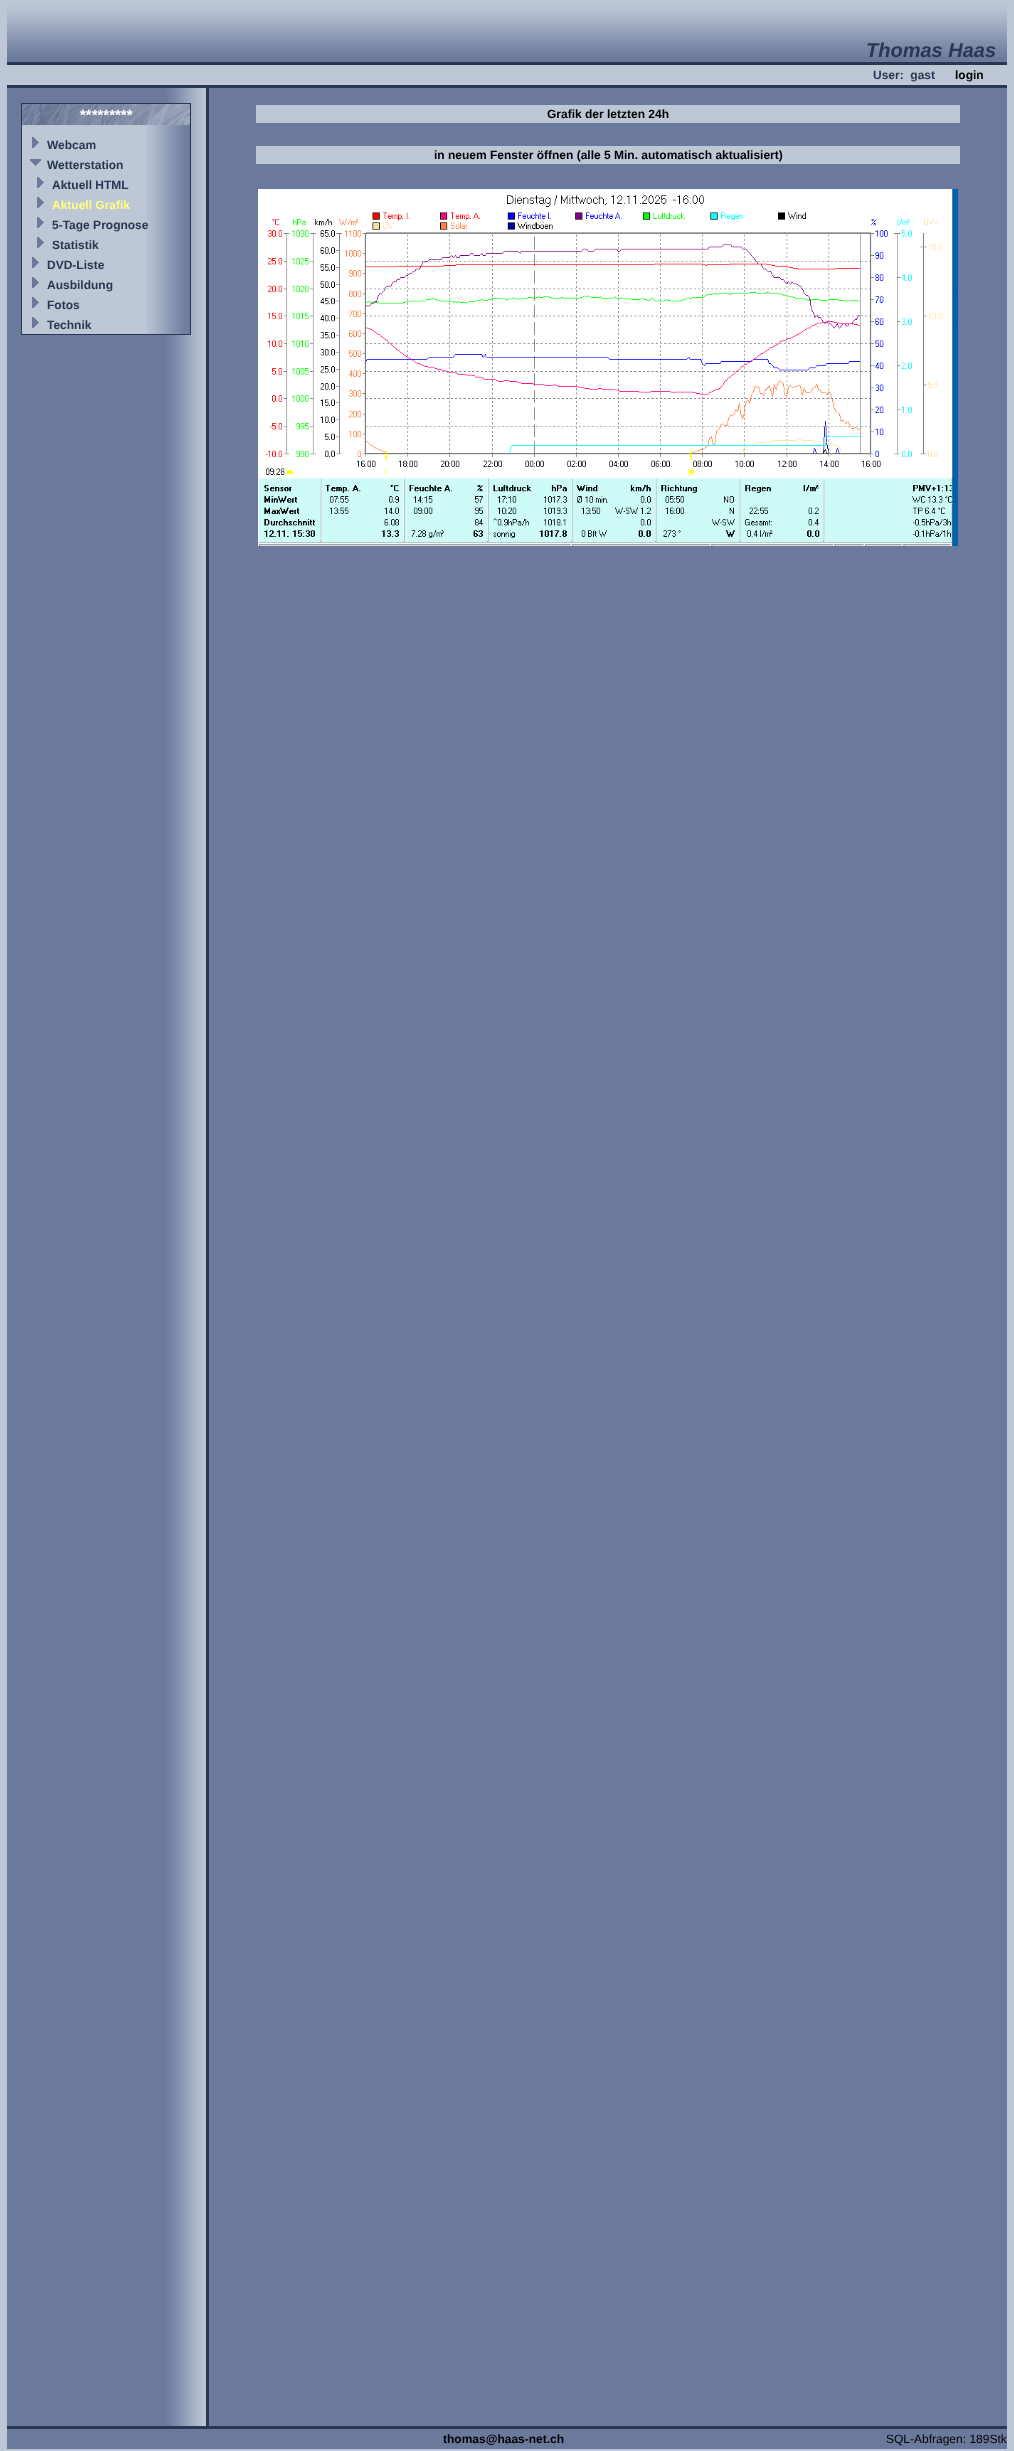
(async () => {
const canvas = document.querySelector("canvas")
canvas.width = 1014
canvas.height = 2451
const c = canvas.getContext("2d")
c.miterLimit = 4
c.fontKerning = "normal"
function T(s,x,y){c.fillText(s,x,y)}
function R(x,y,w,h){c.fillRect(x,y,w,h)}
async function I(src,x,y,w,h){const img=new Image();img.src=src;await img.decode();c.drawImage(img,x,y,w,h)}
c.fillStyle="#bdc7d6"
R(0,0,1014,2451)
c.fillStyle="#6b799c"
R(7,57,1000,2392)
await I("1.png",7,2,1000,55)
c.font="italic bold 20px Liberation Sans"
c.fillStyle="#293852"
T("Thomas Haas",866,57)
R(7,62,1000,3)
c.fillStyle="#bdc7d6"
R(7,65,1000,20)
c.font="bold 12px Liberation Sans"
c.fillStyle="#293852"
T("User:  gast",873,79)
c.fillStyle="#000"
T("login",955,79)
c.fillStyle="#293852"
R(7,85,1000,3)
await I("2.png",167,88,39,2338)
c.fillStyle="#bdc7d6"
R(22,125,124,209)
await I("3.png",146,125,44,209)
c.strokeStyle="#293852"
c.strokeRect(21.5,103.5,169,231)
await I("4.png",22,104,168,21)
c.font="bold 15px Liberation Sans"
c.fillStyle="#fff"
T("*********",80,120)
await I("5.png",32,137,7,11)
c.font="bold 12px Liberation Sans"
c.fillStyle="#293852"
T("Webcam",47,149)
await I("6.png",30,159,11,7)
T("Wetterstation",47,169)
await I("5.png",37,177,7,11)
T("Aktuell HTML",52,189)
await I("5.png",37,197,7,11)
c.fillStyle="#ffff80"
T("Aktuell Grafik",52,209)
await I("5.png",37,217,7,11)
c.fillStyle="#293852"
T("5-Tage Prognose",52,229)
await I("5.png",37,237,7,11)
T("Statistik",52,249)
await I("5.png",32,257,7,11)
T("DVD-Liste",47,269)
await I("5.png",32,277,7,11)
T("Ausbildung",47,289)
await I("5.png",32,297,7,11)
T("Fotos",47,309)
await I("5.png",32,317,7,11)
T("Technik",47,329)
R(206,88,3,2338)
c.fillStyle="#bdc7d6"
R(256,105,704,18)
c.fillStyle="#000"
T("Grafik der letzten 24h",547,118)
c.fillStyle="#bdc7d6"
R(256,146,704,18)
c.fillStyle="#000"
T("in neuem Fenster öffnen (alle 5 Min. automatisch aktualisiert)",434,159)
await I("7.png",258,189,700,357)
c.fillStyle="#293852"
R(7,2426,1000,3)
c.fillStyle="#000"
T("thomas@haas-net.ch",443,2443)
c.font="12px Liberation Sans"
T("SQL-Abfragen: 189Stk",886,2443)
})()
